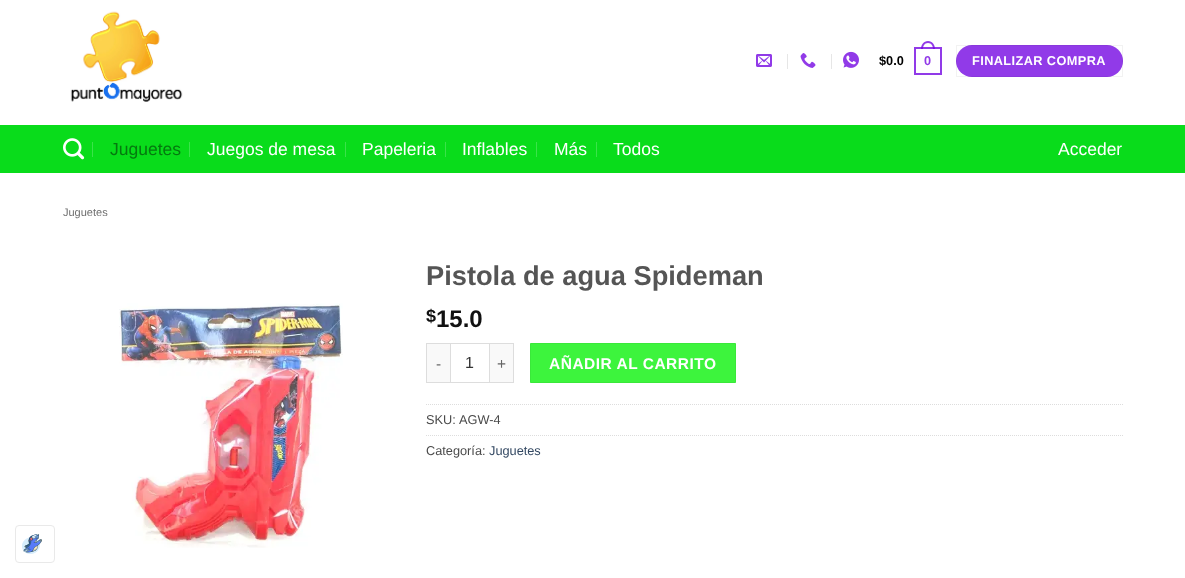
(async () => {
const canvas = document.querySelector("canvas")
canvas.width = 1185
canvas.height = 578
const c = canvas.getContext("2d")
c.miterLimit = 4
c.fontKerning = "normal"
function T(s,x,y){c.fillText(s,x,y)}
function R(x,y,w,h){c.fillRect(x,y,w,h)}
function Q(x,y,w,h,r){c.beginPath();c.roundRect(x,y,w,h,r);c.fill()}
async function I(src,x,y,w,h){const img=new Image();img.src=src;await img.decode();c.drawImage(img,x,y,w,h)}
let path
c.fillStyle="#fff"
R(0,0,1185,578)
await I("1.png",70,11,113,91)
await I("2.png",756,54,16,13)
c.fillStyle="#e6e6e6"
R(787,54,1,15)
await I("3.png",800,53,16,15)
R(831,54,1,15)
await I("4.png",843,51,16,17)
c.font="bold 12.75px Liberation Sans"
c.fillStyle="#000"
T("$0.0",879,65)
c.strokeStyle="#913ae8"
c.lineWidth=2
c.strokeRect(915,48,26,26)
c.fillStyle="#7609e2cc"
path = new Path2D("M928 41c4.5 0 7 4 7 8h-14c0-4 2.5-8 7-8zm0 2c3.5 0 5 3 5 6h-10c0-3 1.5-6 5-6z")
c.fill(path,"evenodd")
c.fillStyle="#913ae8"
T("0",924,65)
Q(956,45,167,32,16)
c.strokeStyle="#0000000d"
c.lineWidth=1
c.strokeRect(956.5,45.5,166,31)
c.letterSpacing="0.4px"
c.fillStyle="#fff"
T("FINALIZAR COMPRA",972,65)
c.fillStyle="#09dc1b"
R(0,125,1185,48)
await I("5.png",63,138,22,22)
c.fillStyle="#3ae349"
R(92,142,1,15)
c.letterSpacing="0px"
c.font="17.5px Liberation Sans"
c.fillStyle="#05790f"
T("Juguetes",110,155)
c.fillStyle="#3ae349"
R(189,142,1,15)
c.fillStyle="#fff"
T("Juegos de mesa",207,155)
c.fillStyle="#3ae349"
R(345,142,1,15)
c.fillStyle="#fff"
T("Papeleria",362,155)
c.fillStyle="#3ae349"
R(445,142,1,15)
c.fillStyle="#fff"
T("Inflables",462,155)
c.fillStyle="#3ae349"
R(536,142,1,15)
c.fillStyle="#fff"
T("Más",554,155)
c.fillStyle="#3ae349"
R(596,142,1,15)
c.fillStyle="#fff"
T("Todos",613,155)
T("Acceder",1058,155)
c.font="11px Liberation Sans"
c.fillStyle="#6e6e6e"
T("Juguetes",63,216)
await I("6.png",119,303,224,245)
c.font="bold 27.25px Liberation Sans"
c.fillStyle="#555"
T("Pistola de agua Spideman",426,285)
c.font="bold 18px Liberation Sans"
c.fillStyle="#111"
T("$",426,322)
c.font="bold 24px Liberation Sans"
T("15.0",436,327)
c.fillStyle="#f9f9f9"
R(427,344,23,38)
c.fillStyle="#ddd"
R(426,343,24,1)
R(426,382,24,1)
R(426,343,1,40)
c.letterSpacing="0.5px"
c.font="15.5px Liberation Sans"
c.fillStyle="#666"
T("-",436,369)
c.strokeStyle="#ddd"
c.strokeRect(450.5,343.5,39,39)
c.letterSpacing="0px"
c.font="16px Liberation Sans"
c.fillStyle="#333"
T("1",465,368)
c.fillStyle="#f9f9f9"
R(490,344,23,38)
c.fillStyle="#ddd"
R(490,343,24,1)
R(513,343,1,40)
R(490,382,24,1)
c.letterSpacing="0.5px"
c.font="15.5px Liberation Sans"
c.fillStyle="#666"
T("+",497,369)
c.fillStyle="#3df43d"
c.beginPath()
c.rect(530.5,343.5,205,39)
c.fill()
c.strokeStyle="#3ae83a"
c.stroke()
c.font="bold 15.5px Liberation Sans"
c.fillStyle="#fff"
T("AÑADIR AL CARRITO",549,369)
path = new Path2D("M426 404.5h697")
c.strokeStyle="#ddd"
c.setLineDash([1,1])
c.stroke(path)
c.letterSpacing="0px"
c.font="12.75px Liberation Sans"
c.fillStyle="#4a4a4a"
T("SKU:",426,424)
T("AGW-4",459,424)
path = new Path2D("M426 435.5h697")
c.stroke(path)
T("Categoría:",426,455)
c.fillStyle="#334862"
T("Juguetes",489,455)
c.beginPath()
c.roundRect(15.5,525.5,39,37,3.5)
c.strokeStyle="#e9e9e9"
c.setLineDash([])
c.stroke()
await I("7.png",22,534,20,20)
})()
